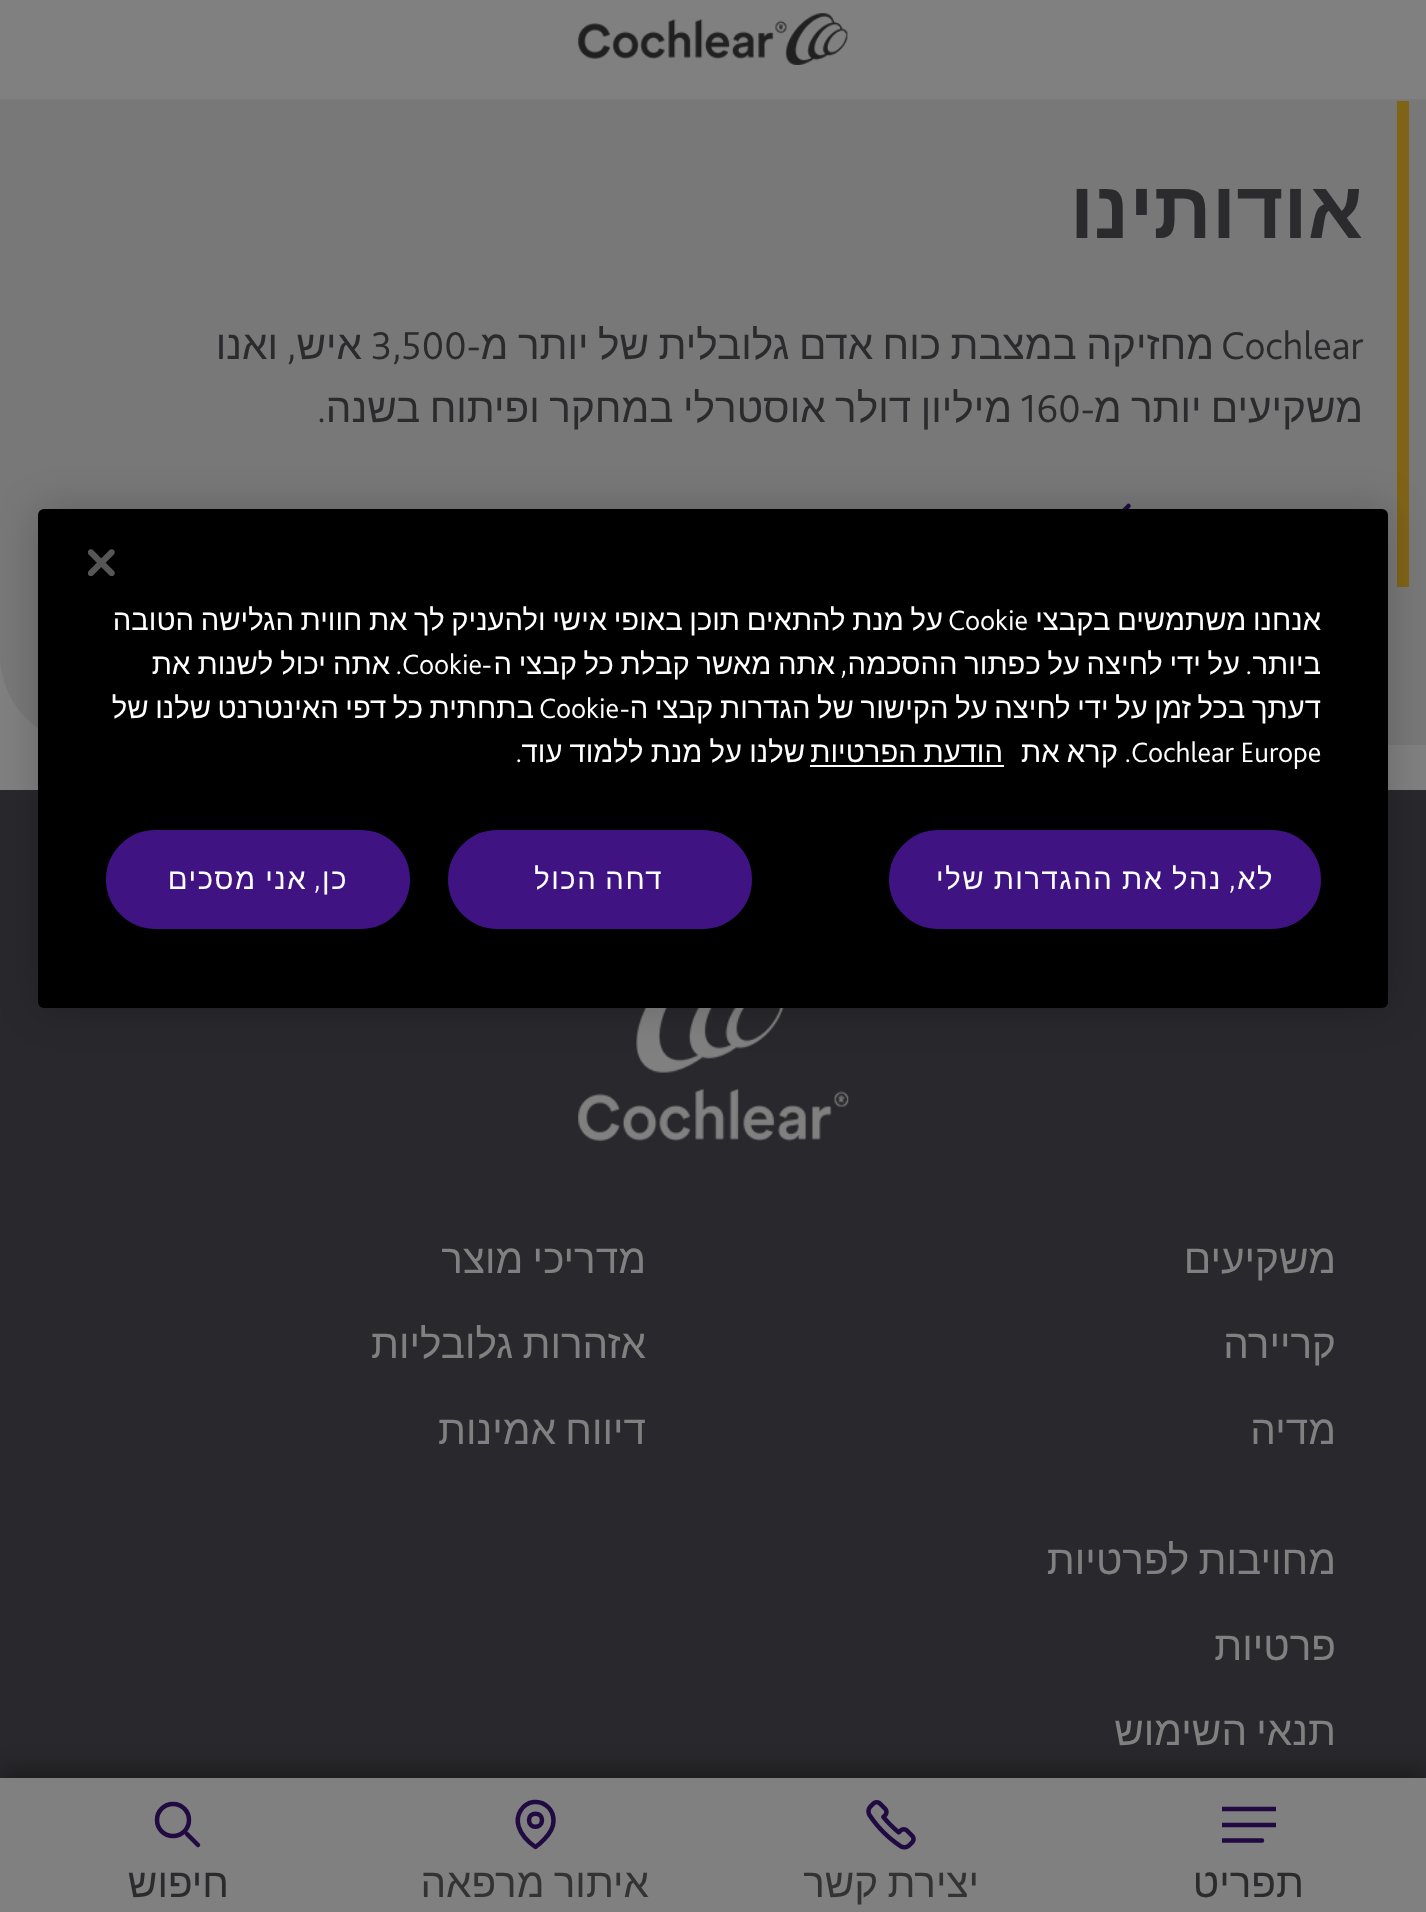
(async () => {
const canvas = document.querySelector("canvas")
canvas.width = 1426
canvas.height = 1912
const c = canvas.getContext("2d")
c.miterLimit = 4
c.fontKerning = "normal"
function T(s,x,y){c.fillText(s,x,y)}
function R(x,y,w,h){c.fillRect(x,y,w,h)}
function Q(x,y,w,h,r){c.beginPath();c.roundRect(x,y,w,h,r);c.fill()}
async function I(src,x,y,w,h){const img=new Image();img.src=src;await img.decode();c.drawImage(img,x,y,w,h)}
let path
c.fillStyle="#808080"
R(0,0,1426,1912)
c.fillStyle="#787878"
path = new Path2D("M0 101h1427v644h-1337c-49.5 0-90-40.5-90-90z")
c.fill(path)
c.fillStyle="#7f6418"
R(1397,101,12,486)
c.direction="rtl"
c.font="bold 81px Liberation Sans"
c.fillStyle="#2b2b2d"
T("אודותינו",1363,238)
c.wordSpacing="-1.75px"
c.font="40.5px Liberation Sans"
T("מחזיקה במצבת כוח אדם גלובלית של יותר מ",1214,359)
c.wordSpacing="0px"
c.direction="ltr"
c.font="300 40.5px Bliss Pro"
T("Cochlear",1221,359)
c.direction="rtl"
T("-",481,359)
c.direction="ltr"
T("3,500",371,359)
c.direction="rtl"
c.font="40.5px Liberation Sans"
T("איש",362,359)
T("ואנו",278,359)
c.font="300 40.5px Bliss Pro"
T(",",296,359)
c.wordSpacing="-2px"
c.font="40.5px Liberation Sans"
T("משקיעים יותר מ",1363,422)
c.wordSpacing="0px"
c.font="300 40.5px Bliss Pro"
T("-",1095,422)
c.direction="ltr"
T("160",1020,422)
c.wordSpacing="-1.75px"
c.direction="rtl"
c.font="40.5px Liberation Sans"
T("מיליון דולר אוסטרלי במחקר ופיתוח בשנה",1012,422)
c.wordSpacing="0px"
c.font="300 40.5px Bliss Pro"
T(".",326,422)
path = new Path2D("M1128.5 528.5l-11.5-11l11.5-11.5")
c.strokeStyle="#200a41"
c.lineWidth=4.5
c.lineCap="round"
c.lineJoin="round"
c.stroke(path)
c.fillStyle="#29292d"
R(0,790,1426,988)
await I("1.png",578,1008,271,134)
c.font="40.5px Liberation Sans"
c.fillStyle="#808080"
T("משקיעים",1336,1273)
T("קריירה",1336,1358)
T("מדיה",1336,1444)
c.wordSpacing="-2px"
T("מדריכי מוצר",646,1273)
T("אזהרות גלובליות",646,1358)
T("דיווח אמינות",646,1444)
T("מחויבות לפרטיות",1336,1574)
c.wordSpacing="0px"
T("פרטיות",1336,1660)
c.wordSpacing="-2px"
T("תנאי השימוש",1336,1745)
c.fillStyle="#797979"
R(0,99,1426,2)
await I("2.png",577,13,271,52)
c.fillStyle="#0000004d"
c.filter="blur(11px)"
c.beginPath()
c.rect(0,1769,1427,135)
c.fill()
c.filter="none"
c.fillStyle="#808080"
R(0,1778,1426,134)
c.save()
c.beginPath()
c.rect(1222,1798,54,54)
c.clip()
path = new Path2D("M1222 1825h54m-54 15.5h40m-40-31.5h54")
c.stroke(path)
c.restore()
c.wordSpacing="0px"
c.fillStyle="#2b2b2d"
T("תפריט",1304,1897)
await I("3.png",866,1800,50,50)
c.wordSpacing="-2px"
c.fillStyle="#333"
T("יצירת קשר",979,1897)
path = new Path2D("M553.5 1821c0 13.5-18 26-18 26c-38.5-27-5-58 13-39.5c3.5 3.5 5 8.5 5 13.5zm-11.5-1c0 9-13 9-13 0c0-8.5 13-8.5 13 0z")
c.stroke(path)
T("איתור מרפאה",649,1897)
c.beginPath()
c.arc(173,1820,16,0,7)
c.stroke()
path = new Path2D("M187 1834l11 11")
c.lineJoin="miter"
c.stroke(path)
c.wordSpacing="0px"
c.fillStyle="#2b2b2d"
T("חיפוש",229,1897)
c.fillStyle="#00000033"
c.filter="blur(20px)"
c.beginPath()
c.roundRect(38,509,1350,499,6)
c.fill()
c.filter="none"
c.fillStyle="#000"
Q(38,509,1350,499,6)
await I("4.png",88,549,27,27)
c.wordSpacing="-1.5px"
c.font="29.25px Liberation Sans"
c.fillStyle="#fff"
T("אנחנו משתמשים בקבצי",1321,630)
T("על מנת להתאים תוכן באופי אישי ולהעניק לך את חווית הגלישה הטובה",943,630)
c.wordSpacing="0px"
c.direction="ltr"
c.font="300 29.25px Bliss Pro"
T("Cookie",948,630)
c.direction="rtl"
c.font="29.25px Liberation Sans"
T("ביותר",1321,674)
c.wordSpacing="-1.5px"
T("על ידי לחיצה על כפתור ההסכמה",1240,674)
T("אתה מאשר קבלת כל קבצי ה",835,674)
c.wordSpacing="0px"
c.font="300 29.25px Bliss Pro"
T("-",492,674)
c.direction="ltr"
T("Cookie",402,674)
c.wordSpacing="-1px"
c.direction="rtl"
c.font="29.25px Liberation Sans"
T("אתה יכול לשנות את",390,674)
c.wordSpacing="0px"
c.font="300 29.25px Bliss Pro"
T(".",1252,674)
T(",",847,674)
T(".",402,674)
c.wordSpacing="-1.5px"
c.font="29.25px Liberation Sans"
T("דעתך בכל זמן על ידי לחיצה על הקישור של הגדרות קבצי ה",1321,718)
c.wordSpacing="0px"
c.font="300 29.25px Bliss Pro"
T("-",630,718)
c.direction="ltr"
T("Cookie",539,718)
c.wordSpacing="-1.5px"
c.direction="rtl"
c.font="29.25px Liberation Sans"
T("בתחתית כל דפי האינטרנט שלנו של",534,718)
c.wordSpacing="0px"
c.direction="ltr"
c.font="300 29.25px Bliss Pro"
T("Cochlear Europe",1131,762)
c.direction="rtl"
T(".",1131,762)
c.wordSpacing="-1px"
c.font="29.25px Liberation Sans"
T("קרא את",1118,762)
c.wordSpacing="-1.5px"
T("הודעת הפרטיות",1003,762)
R(810,765,194,2)
c.wordSpacing="-1px"
T("שלנו על מנת ללמוד עוד",805,762)
c.wordSpacing="0px"
c.font="300 29.25px Bliss Pro"
T(".",522,762)
c.fillStyle="#3f1482"
c.beginPath()
c.roundRect(890,831,430,97,48.5)
c.fill()
c.strokeStyle="#3f1482"
c.lineWidth=2
c.stroke()
c.letterSpacing="1.5px"
c.font="29.25px Liberation Sans"
c.fillStyle="#fff"
T("לא",1274,889)
c.font="300 29.25px Bliss Pro"
T(",",1237,889)
c.wordSpacing="-1px"
c.font="29.25px Liberation Sans"
T("נהל את ההגדרות שלי",1222,889)
c.fillStyle="#3f1482"
c.beginPath()
c.roundRect(449,831,302,97,48.5)
c.fill()
c.stroke()
c.wordSpacing="-1.5px"
c.fillStyle="#fff"
T("דחה הכול",663,889)
c.fillStyle="#3f1482"
c.beginPath()
c.roundRect(107,831,302,97,48.5)
c.fill()
c.stroke()
c.wordSpacing="0px"
c.fillStyle="#fff"
T("כן",348,889)
c.font="300 29.25px Bliss Pro"
T(",",322,889)
c.wordSpacing="-1px"
c.font="29.25px Liberation Sans"
T("אני מסכים",307,889)
})()
